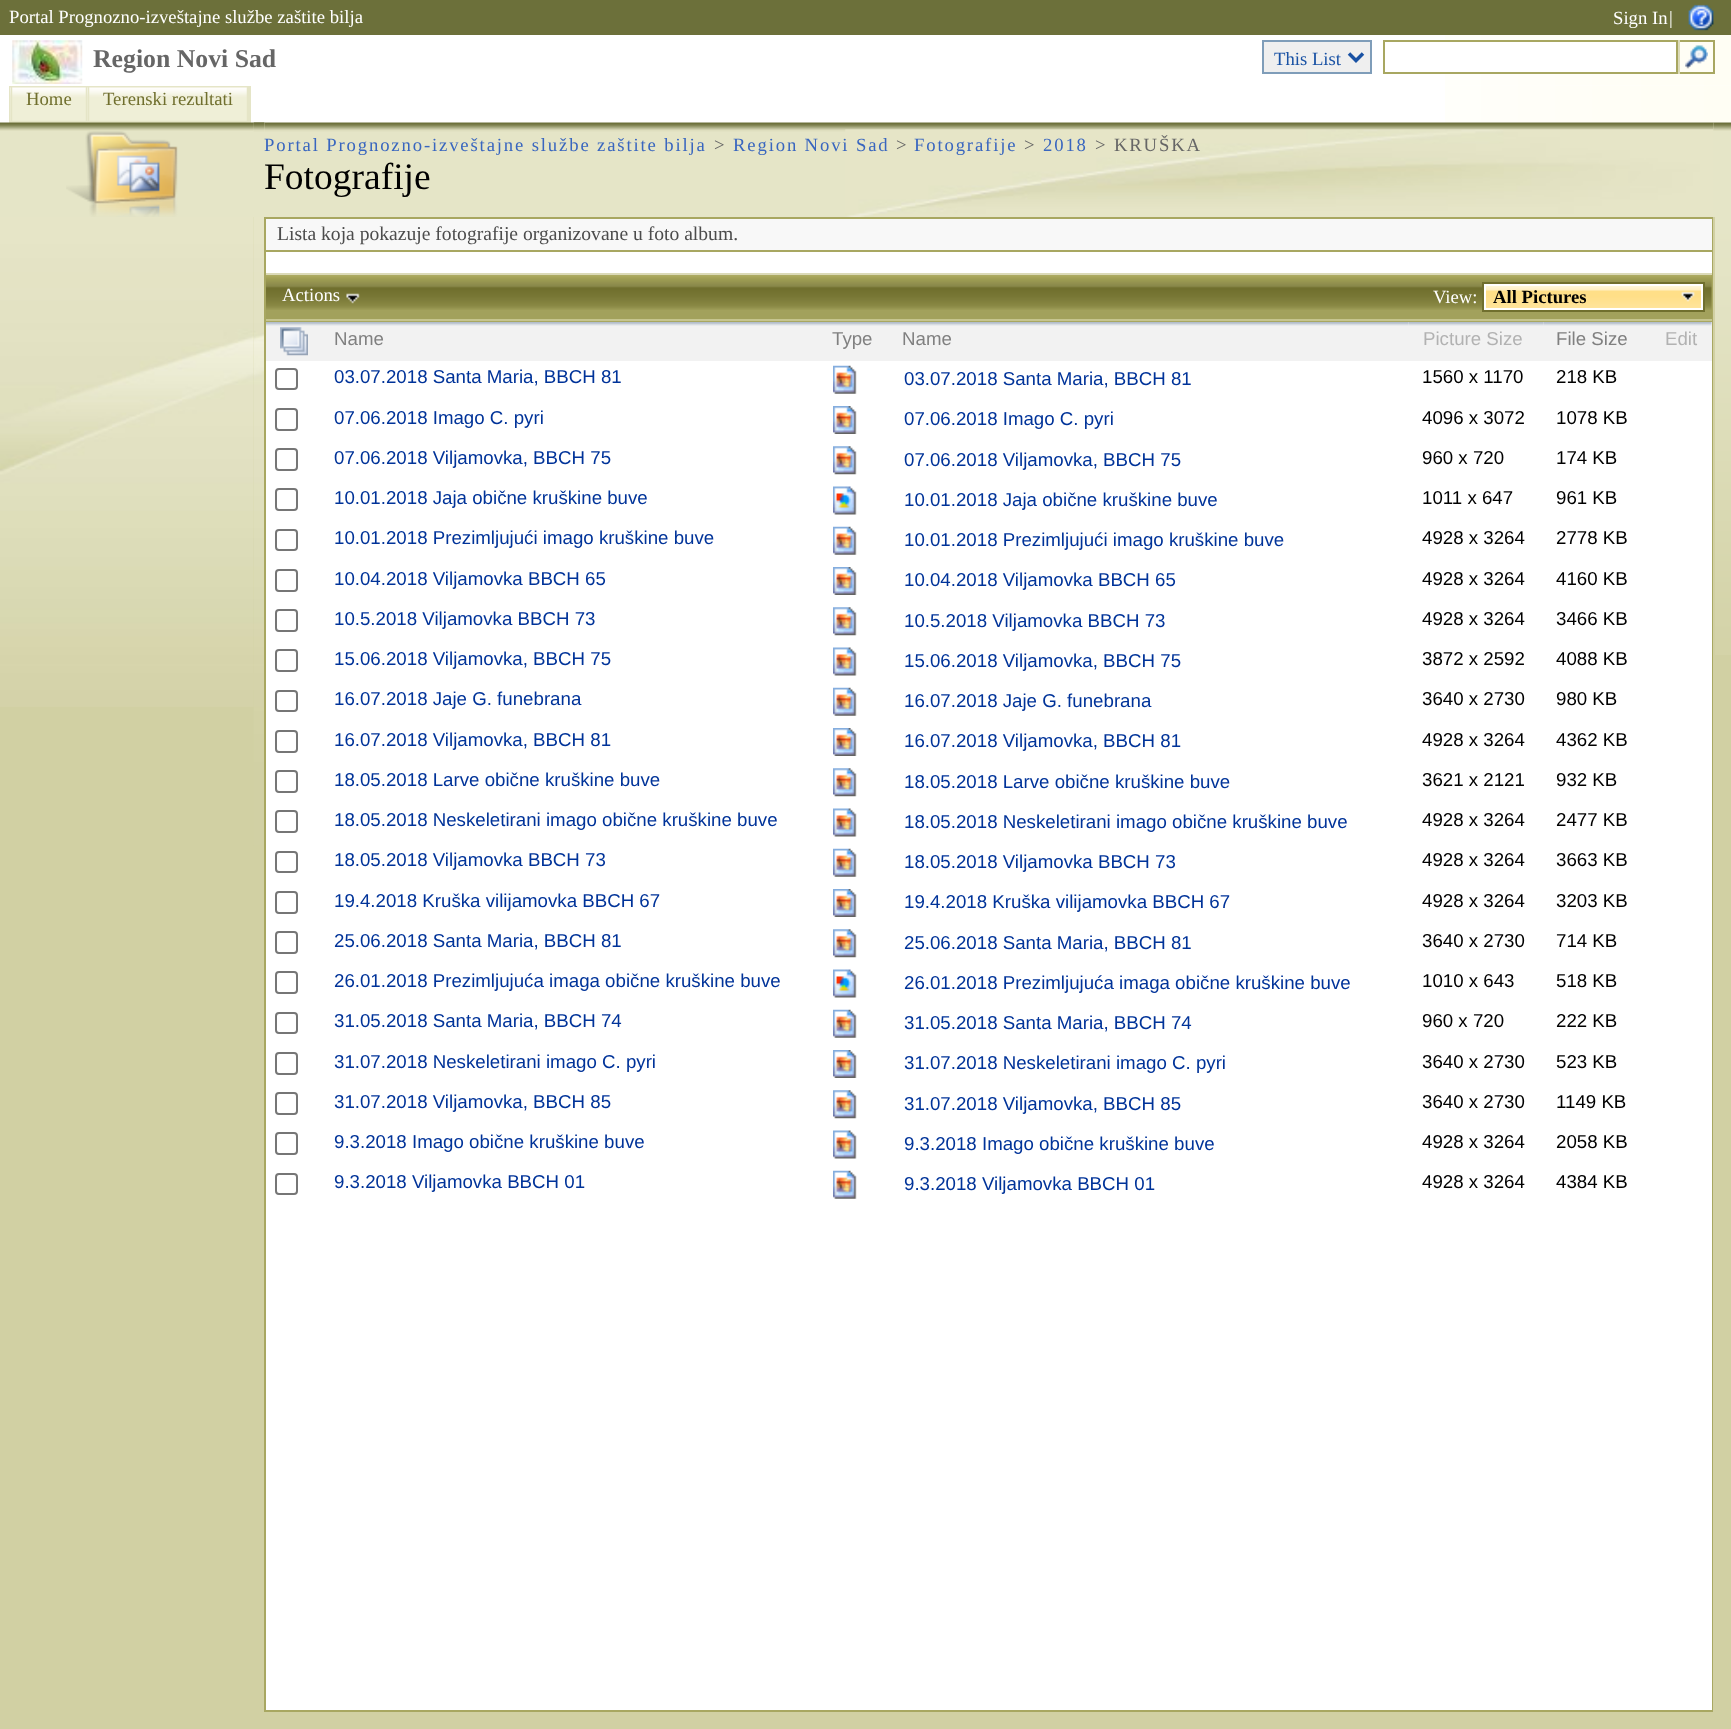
(async () => {
const canvas = document.querySelector("canvas")
canvas.width = 1731
canvas.height = 1729
const c = canvas.getContext("2d")
c.miterLimit = 4
c.fontKerning = "normal"
function T(s,x,y){c.fillText(s,x,y)}
function R(x,y,w,h){c.fillRect(x,y,w,h)}
async function I(src,x,y,w,h){const img=new Image();img.src=src;await img.decode();c.drawImage(img,x,y,w,h)}
let path
c.fillStyle="#fff"
R(0,0,1731,1729)
c.fillStyle="#6c703a"
R(0,0,1731,35)
c.font="18.7px Liberation Serif"
c.fillStyle="#fff"
T("Portal Prognozno-izveštajne službe zaštite bilja",9,23)
T("Sign In",1613,24)
T("|",1669,24)
await I("1.png",1688,4,26,27)
await I("2.png",1445,35,286,51)
await I("3.png",12,40,71,44)
c.font="bold 25.75px Liberation Serif"
c.fillStyle="#666"
T("Region Novi Sad",93,67)
c.fillStyle="#efefef"
c.beginPath()
c.rect(1263,41,108,32)
c.fill()
c.strokeStyle="#7f9db9"
c.lineWidth=2
c.stroke()
path = new Path2D("M1349 53.5l7 7l7-7")
c.strokeStyle="#1952a4"
c.lineWidth=3.5
c.stroke(path)
c.font="18.7px Liberation Serif"
c.fillStyle="#1952a4"
T("This List",1274,65)
c.fillStyle="#fff"
R(1445,42,231,30)
c.strokeStyle="#a8a761"
c.lineWidth=2
c.strokeRect(1384,41,293,32)
c.fillStyle="#a8a761"
R(1678,40,37,2)
R(1713,40,2,34)
R(1678,72,37,2)
c.fillStyle="#dbdab8"
R(1678,40,2,34)
await I("4.png",1685,45,23,24)
await I("5.png",1445,86,286,37)
c.fillStyle="#e5e5c7"
R(249,86,2,37)
R(9,86,2,37)
await I("6.png",10,87,1,34)
c.strokeStyle="#e5e5c7"
c.strokeRect(12,87,75,35)
R(13,88,73,33)
await I("7.png",12,87,74,34)
c.fillStyle="#706f2e"
T("Home",26,105)
await I("6.png",87,87,1,34)
c.strokeRect(89,87,159,35)
c.fillStyle="#e5e5c7"
R(90,88,157,33)
await I("8.png",89,87,158,34)
c.fillStyle="#706f2e"
T("Terenski rezultati",103,105)
c.fillStyle="#e5e5c7"
R(0,123,254,94)
await I("9.png",0,122,254,9)
await I("10.png",66,131,112,86)
await I("11.png",253,122,12,11)
R(254,133,10,84)
await I("12.png",253,122,12,11)
R(264,123,582,94)
await I("13.png",264,122,1450,11)
await I("14.png",845,129,868,88)
c.letterSpacing="1.85px"
c.fillStyle="#3966bf"
T("Portal Prognozno-izveštajne službe zaštite bilja",264,151)
c.fillStyle="#666"
T(">",714,151)
c.fillStyle="#3966bf"
T("Region Novi Sad",733,151)
c.fillStyle="#666"
T(">",896,151)
c.fillStyle="#3966bf"
T("Fotografije",914,151)
c.fillStyle="#666"
T(">",1024,151)
c.fillStyle="#3966bf"
T("2018",1043,151)
c.fillStyle="#666"
T("> KRUŠKA",1095,151)
c.letterSpacing="0px"
c.font="37.5px Liberation Serif"
c.fillStyle="#000"
T("Fotografije",264,189)
c.fillStyle="#e5e5c7"
R(1713,123,18,94)
await I("15.png",1713,122,18,9)
c.fillStyle="#d1d0a3"
R(0,217,254,1512)
await I("16.png",0,217,254,490)
R(254,845,10,884)
await I("17.png",253,217,11,629)
c.fillStyle="#a8a761"
R(264,217,1449,2)
R(1712,217,1,1493)
R(264,217,2,1493)
c.fillStyle="#f8f8f8"
R(266,219,1446,31)
c.fillStyle="#a8a761"
R(266,250,1446,2)
c.font="19.6px Liberation Serif"
c.fillStyle="#4c4c4c"
T("Lista koja pokazuje fotografije organizovane u foto album.",277,240)
c.fillStyle="#a2a15c"
R(266,275,1446,44)
await I("18.png",266,275,1446,35)
c.fillStyle="#a8a761"
R(266,321,1446,1)
c.fillStyle="#dbdab8"
R(266,273,1446,2)
c.fillStyle="#c6c58f"
R(266,319,1446,2)
c.font="18.7px Liberation Serif"
c.fillStyle="#fff"
T("Actions",282,301)
await I("19.png",346,293,14,11)
T("View:",1433,303)
await I("20.png",1486,286,215,22)
c.strokeStyle="#706f2e"
c.strokeRect(1483,283,221,28)
await I("21.png",1681,291,14,11)
c.strokeStyle="#fff"
c.strokeRect(1485,285,217,24)
c.font="bold 18.7px Liberation Serif"
c.fillStyle="#000"
T("All Pictures",1493,303)
c.fillStyle="#f2f2f2"
R(266,325,623,36)
await I("22.png",266,322,56,4)
await I("23.png",280,327,28,29)
R(889,322,655,39)
await I("24.png",1409,322,135,4)
c.font="18.7px Liberation Sans"
c.fillStyle="#b2b2b2"
T("Picture Size",1423,345)
c.fillStyle="#f2f2f2"
R(1544,325,108,36)
await I("25.png",1543,322,109,4)
c.fillStyle="#808080"
T("File Size",1556,345)
c.fillStyle="#f2f2f2"
R(1652,322,60,39)
await I("26.png",1652,322,60,4)
c.fillStyle="#b2b2b2"
T("Edit",1665,345)
await I("27.png",322,322,497,4)
c.fillStyle="#808080"
T("Name",334,345)
await I("28.png",819,322,70,4)
T("Type",832,345)
await I("29.png",889,322,520,4)
T("Name",902,345)
c.beginPath()
c.roundRect(276,369,21,20,3)
c.strokeStyle="#767676"
c.stroke()
c.fillStyle="#039"
T("03.07.2018 Santa Maria, BBCH 81",334,383)
await I("30.png",833,365,24,29)
T("03.07.2018 Santa Maria, BBCH 81",904,385)
c.fillStyle="#000"
T("1560 x 1170",1422,383)
T("218 KB",1556,383)
c.beginPath()
c.roundRect(276,409,21,21,3)
c.stroke()
c.fillStyle="#039"
T("07.06.2018 Imago C. pyri",334,424)
await I("31.png",833,406,24,28)
T("07.06.2018 Imago C. pyri",904,425)
c.fillStyle="#000"
T("4096 x 3072",1422,424)
T("1078 KB",1556,424)
c.beginPath()
c.roundRect(276,449,21,21,3)
c.stroke()
c.fillStyle="#039"
T("07.06.2018 Viljamovka, BBCH 75",334,464)
await I("32.png",833,446,24,29)
T("07.06.2018 Viljamovka, BBCH 75",904,466)
c.fillStyle="#000"
T("960 x 720",1422,464)
T("174 KB",1556,464)
c.beginPath()
c.roundRect(276,489,21,21,3)
c.stroke()
c.fillStyle="#039"
T("10.01.2018 Jaja obične kruškine buve",334,504)
await I("33.png",833,486,24,29)
T("10.01.2018 Jaja obične kruškine buve",904,506)
c.fillStyle="#000"
T("1011 x 647",1422,504)
T("961 KB",1556,504)
c.beginPath()
c.roundRect(276,530,21,20,3)
c.stroke()
c.fillStyle="#039"
T("10.01.2018 Prezimljujući imago kruškine buve",334,544)
await I("30.png",833,526,24,29)
T("10.01.2018 Prezimljujući imago kruškine buve",904,546)
c.fillStyle="#000"
T("4928 x 3264",1422,544)
T("2778 KB",1556,544)
c.beginPath()
c.roundRect(276,570,21,21,3)
c.stroke()
c.fillStyle="#039"
T("10.04.2018 Viljamovka BBCH 65",334,585)
await I("31.png",833,567,24,28)
T("10.04.2018 Viljamovka BBCH 65",904,586)
c.fillStyle="#000"
T("4928 x 3264",1422,585)
T("4160 KB",1556,585)
c.beginPath()
c.roundRect(276,610,21,21,3)
c.stroke()
c.fillStyle="#039"
T("10.5.2018 Viljamovka BBCH 73",334,625)
await I("32.png",833,607,24,29)
T("10.5.2018 Viljamovka BBCH 73",904,627)
c.fillStyle="#000"
T("4928 x 3264",1422,625)
T("3466 KB",1556,625)
c.beginPath()
c.roundRect(276,650,21,21,3)
c.stroke()
c.fillStyle="#039"
T("15.06.2018 Viljamovka, BBCH 75",334,665)
await I("34.png",833,647,24,29)
T("15.06.2018 Viljamovka, BBCH 75",904,667)
c.fillStyle="#000"
T("3872 x 2592",1422,665)
T("4088 KB",1556,665)
c.beginPath()
c.roundRect(276,691,21,20,3)
c.stroke()
c.fillStyle="#039"
T("16.07.2018 Jaje G. funebrana",334,705)
await I("30.png",833,687,24,29)
T("16.07.2018 Jaje G. funebrana",904,707)
c.fillStyle="#000"
T("3640 x 2730",1422,705)
T("980 KB",1556,705)
c.beginPath()
c.roundRect(276,731,21,21,3)
c.stroke()
c.fillStyle="#039"
T("16.07.2018 Viljamovka, BBCH 81",334,746)
await I("31.png",833,728,24,28)
T("16.07.2018 Viljamovka, BBCH 81",904,747)
c.fillStyle="#000"
T("4928 x 3264",1422,746)
T("4362 KB",1556,746)
c.beginPath()
c.roundRect(276,771,21,21,3)
c.stroke()
c.fillStyle="#039"
T("18.05.2018 Larve obične kruškine buve",334,786)
await I("32.png",833,768,24,29)
T("18.05.2018 Larve obične kruškine buve",904,788)
c.fillStyle="#000"
T("3621 x 2121",1422,786)
T("932 KB",1556,786)
c.beginPath()
c.roundRect(276,811,21,21,3)
c.stroke()
c.fillStyle="#039"
T("18.05.2018 Neskeletirani imago obične kruškine buve",334,826)
await I("34.png",833,808,24,29)
T("18.05.2018 Neskeletirani imago obične kruškine buve",904,828)
c.fillStyle="#000"
T("4928 x 3264",1422,826)
T("2477 KB",1556,826)
c.beginPath()
c.roundRect(276,852,21,20,3)
c.stroke()
c.fillStyle="#039"
T("18.05.2018 Viljamovka BBCH 73",334,866)
await I("30.png",833,848,24,29)
T("18.05.2018 Viljamovka BBCH 73",904,868)
c.fillStyle="#000"
T("4928 x 3264",1422,866)
T("3663 KB",1556,866)
c.beginPath()
c.roundRect(276,892,21,21,3)
c.stroke()
c.fillStyle="#039"
T("19.4.2018 Kruška vilijamovka BBCH 67",334,907)
await I("31.png",833,889,24,28)
T("19.4.2018 Kruška vilijamovka BBCH 67",904,908)
c.fillStyle="#000"
T("4928 x 3264",1422,907)
T("3203 KB",1556,907)
c.beginPath()
c.roundRect(276,932,21,21,3)
c.stroke()
c.fillStyle="#039"
T("25.06.2018 Santa Maria, BBCH 81",334,947)
await I("32.png",833,929,24,29)
T("25.06.2018 Santa Maria, BBCH 81",904,949)
c.fillStyle="#000"
T("3640 x 2730",1422,947)
T("714 KB",1556,947)
c.beginPath()
c.roundRect(276,972,21,21,3)
c.stroke()
c.fillStyle="#039"
T("26.01.2018 Prezimljujuća imaga obične kruškine buve",334,987)
await I("33.png",833,969,24,29)
T("26.01.2018 Prezimljujuća imaga obične kruškine buve",904,989)
c.fillStyle="#000"
T("1010 x 643",1422,987)
T("518 KB",1556,987)
c.beginPath()
c.roundRect(276,1013,21,20,3)
c.stroke()
c.fillStyle="#039"
T("31.05.2018 Santa Maria, BBCH 74",334,1027)
await I("30.png",833,1009,24,29)
T("31.05.2018 Santa Maria, BBCH 74",904,1029)
c.fillStyle="#000"
T("960 x 720",1422,1027)
T("222 KB",1556,1027)
c.beginPath()
c.roundRect(276,1053,21,21,3)
c.stroke()
c.fillStyle="#039"
T("31.07.2018 Neskeletirani imago C. pyri",334,1068)
await I("31.png",833,1050,24,28)
T("31.07.2018 Neskeletirani imago C. pyri",904,1069)
c.fillStyle="#000"
T("3640 x 2730",1422,1068)
T("523 KB",1556,1068)
c.beginPath()
c.roundRect(276,1093,21,21,3)
c.stroke()
c.fillStyle="#039"
T("31.07.2018 Viljamovka, BBCH 85",334,1108)
await I("32.png",833,1090,24,29)
T("31.07.2018 Viljamovka, BBCH 85",904,1110)
c.fillStyle="#000"
T("3640 x 2730",1422,1108)
T("1149 KB",1556,1108)
c.beginPath()
c.roundRect(276,1133,21,21,3)
c.stroke()
c.fillStyle="#039"
T("9.3.2018 Imago obične kruškine buve",334,1148)
await I("34.png",833,1130,24,29)
T("9.3.2018 Imago obične kruškine buve",904,1150)
c.fillStyle="#000"
T("4928 x 3264",1422,1148)
T("2058 KB",1556,1148)
c.beginPath()
c.roundRect(276,1174,21,20,3)
c.stroke()
c.fillStyle="#039"
T("9.3.2018 Viljamovka BBCH 01",334,1188)
await I("30.png",833,1170,24,29)
T("9.3.2018 Viljamovka BBCH 01",904,1190)
c.fillStyle="#000"
T("4928 x 3264",1422,1188)
T("4384 KB",1556,1188)
c.fillStyle="#d1d0a3"
R(1715,655,16,1055)
await I("35.png",1715,217,16,438)
R(1713,217,2,1493)
R(264,1712,1449,17)
c.fillStyle="#a8a761"
R(264,1710,1449,2)
c.fillStyle="#d1d0a3"
R(1713,1710,18,19)
})()
